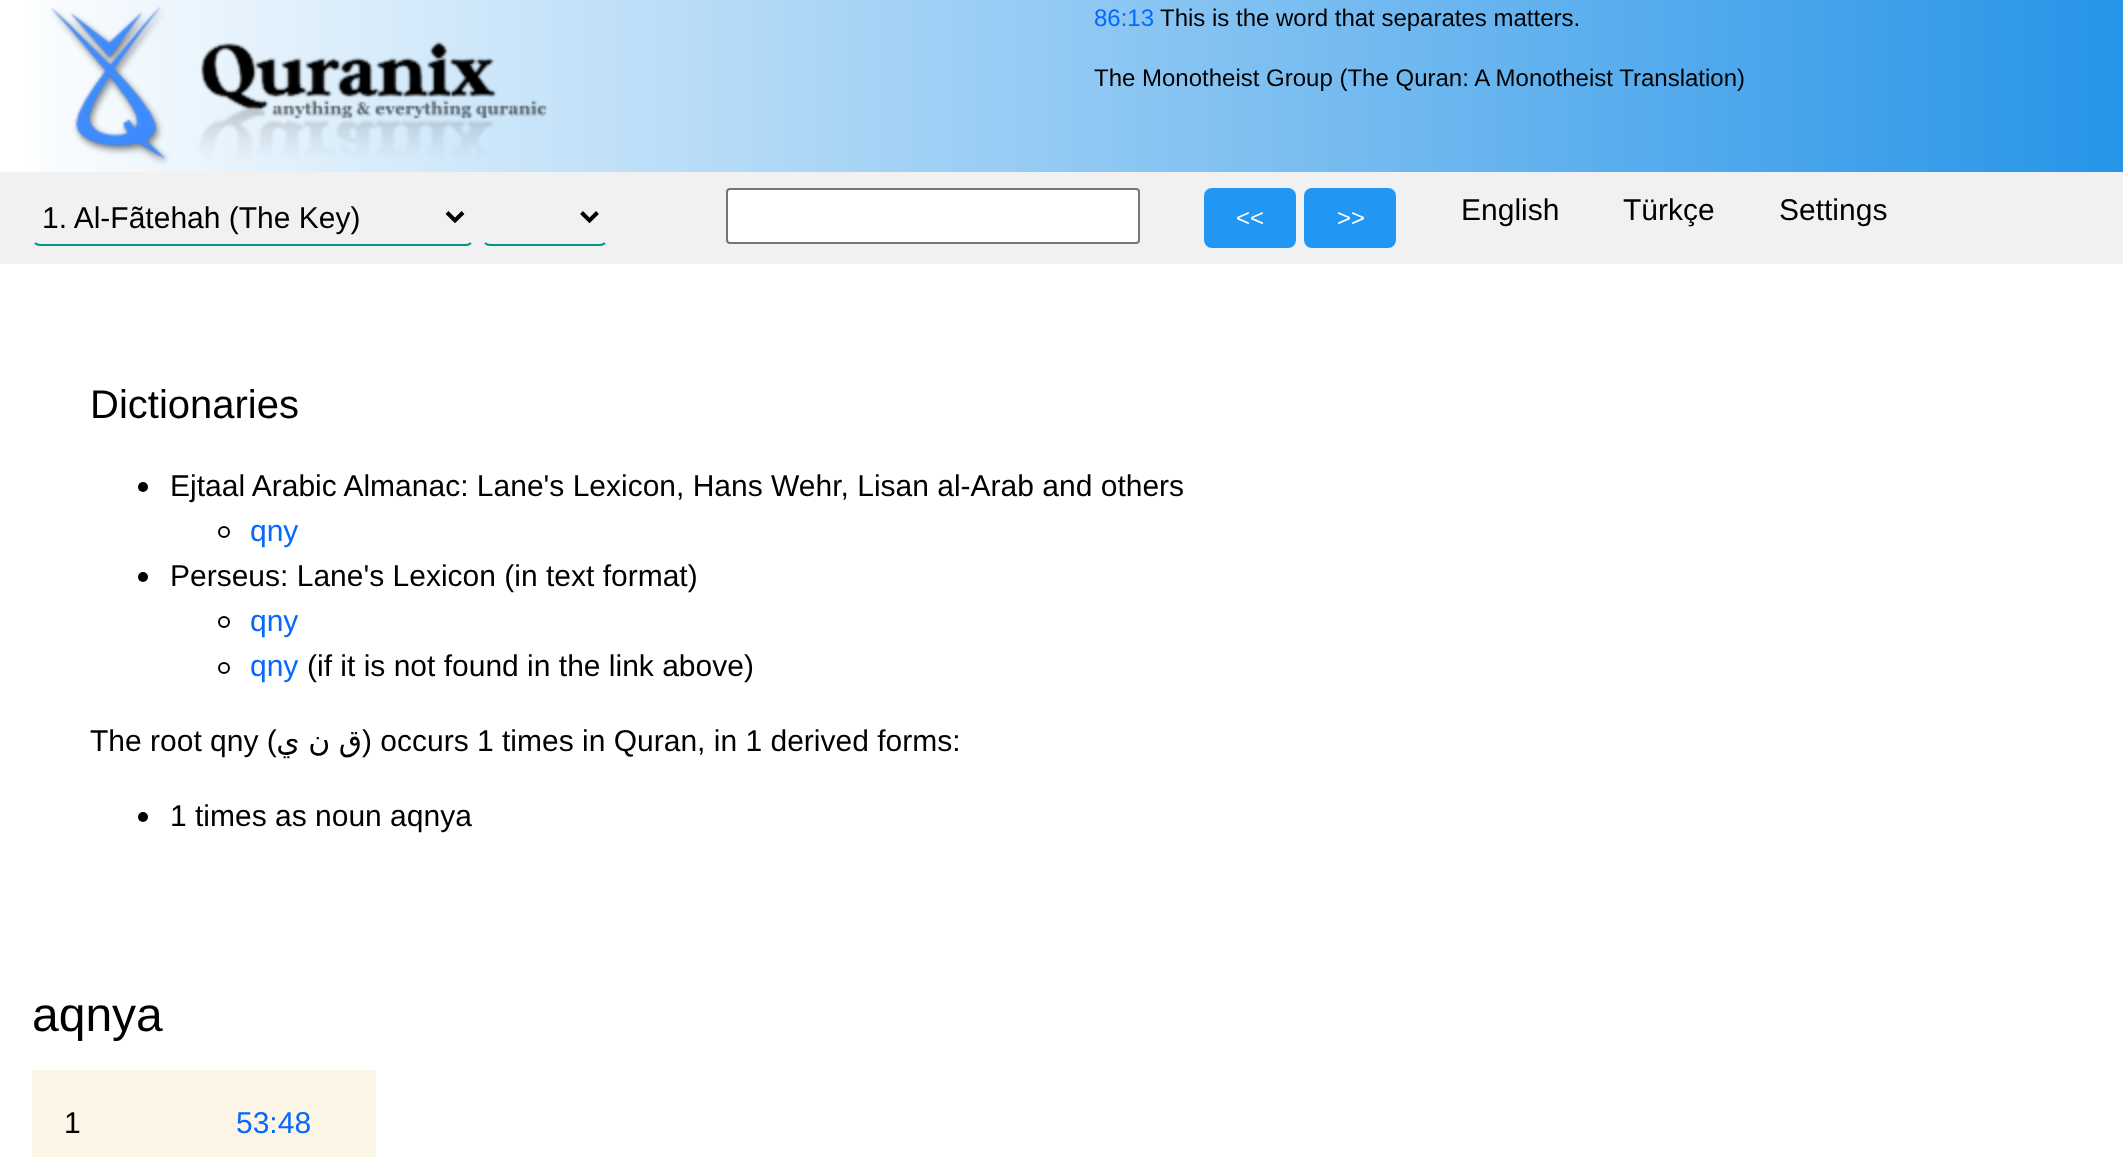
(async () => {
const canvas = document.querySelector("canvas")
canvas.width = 2123
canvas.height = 1157
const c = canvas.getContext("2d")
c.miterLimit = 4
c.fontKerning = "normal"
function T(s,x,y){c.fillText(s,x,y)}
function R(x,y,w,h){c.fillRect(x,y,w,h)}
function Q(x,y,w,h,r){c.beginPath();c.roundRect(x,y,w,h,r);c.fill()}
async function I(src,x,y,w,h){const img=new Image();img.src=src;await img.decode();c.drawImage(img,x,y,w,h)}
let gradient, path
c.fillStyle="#fff"
R(0,0,2123,1157)
gradient = c.createLinearGradient(0,86,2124,86)
gradient.addColorStop(0,"#fff")
gradient.addColorStop(1,"#2694e8")
c.fillStyle = gradient
R(25,0,2098,172)
await I("1.png",50,6,497,159)
c.font="24px Liberation Sans"
c.fillStyle="#0569ff"
T("86:13",1094,26)
c.fillStyle="#000"
T("This is the word that separates matters.",1160,26)
T("The Monotheist Group (The Quran: A Monotheist Translation)",1094,86)
c.fillStyle="#f1f1f1"
R(0,172,2123,92)
path = new Path2D("M471 243c-1.5 1.5-3 2-5 2h-426c-2 0-3.5-.5-5-2")
c.strokeStyle="#009688"
c.lineWidth=2
c.stroke(path)
path = new Path2D("M447 212.5l8 8l8-8")
c.strokeStyle="#000"
c.lineWidth=4
c.stroke(path)
c.font="30px Liberation Sans"
c.fillStyle="#000"
T("1. Al-Fãtehah (The Key)",42,228)
path = new Path2D("M605 243c-1.5 1.5-3 2-5 2h-110c-2 0-3.5-.5-5-2")
c.strokeStyle="#009688"
c.lineWidth=2
c.stroke(path)
path = new Path2D("M581.5 212.5l8 8l8-8")
c.strokeStyle="#000"
c.lineWidth=4
c.stroke(path)
c.fillStyle="#fff"
c.beginPath()
c.roundRect(727,189,412,54,3)
c.fill()
c.strokeStyle="#767676"
c.lineWidth=2
c.stroke()
c.fillStyle="#2196f3"
Q(1204,188,92,60,8)
c.font="24px Liberation Sans"
c.fillStyle="#fff"
T("<<",1236,226)
c.fillStyle="#2196f3"
Q(1304,188,92,60,8)
c.fillStyle="#fff"
T(">>",1337,226)
c.font="30px Liberation Sans"
c.fillStyle="#000"
T("English",1461,220)
T("Türkçe",1623,220)
T("Settings",1779,220)
c.font="40px Liberation Sans"
T("Dictionaries",90,418)
c.beginPath()
c.arc(143,487,5,0,7)
c.fill()
c.font="30px Liberation Sans"
T("Ejtaal Arabic Almanac: Lane's Lexicon, Hans Wehr, Lisan al-Arab and others",170,496)
c.beginPath()
c.arc(224,532,5,0,7)
c.strokeStyle="#000"
c.stroke()
c.fillStyle="#0569ff"
T("qny",250,541)
c.fillStyle="#000"
c.beginPath()
c.arc(143,577,5,0,7)
c.fill()
T("Perseus: Lane's Lexicon (in text format)",170,586)
c.beginPath()
c.arc(224,622,5,0,7)
c.stroke()
c.fillStyle="#0569ff"
T("qny",250,631)
c.beginPath()
c.arc(224,668,5,0,7)
c.stroke()
T("qny",250,676)
c.fillStyle="#000"
T("(if it is not found in the link above)",307,676)
T("The root qny (",90,751)
c.wordSpacing="-1px"
c.direction="rtl"
c.font="30px DejaVu Sans"
T("ق ن ي",362,751)
c.wordSpacing="0px"
c.direction="ltr"
c.font="30px Liberation Sans"
T(") occurs 1 times in Quran, in 1 derived forms:",362,751)
c.beginPath()
c.arc(143,817,5,0,7)
c.fill()
T("1 times as noun aqnya",170,826)
c.font="48px Liberation Sans"
T("aqnya",32,1031)
c.fillStyle="#fdf5e6"
R(32,1070,344,87)
c.font="30px Liberation Sans"
c.fillStyle="#000"
T("1",64,1133)
c.fillStyle="#0569ff"
T("53:48",236,1133)
})()
